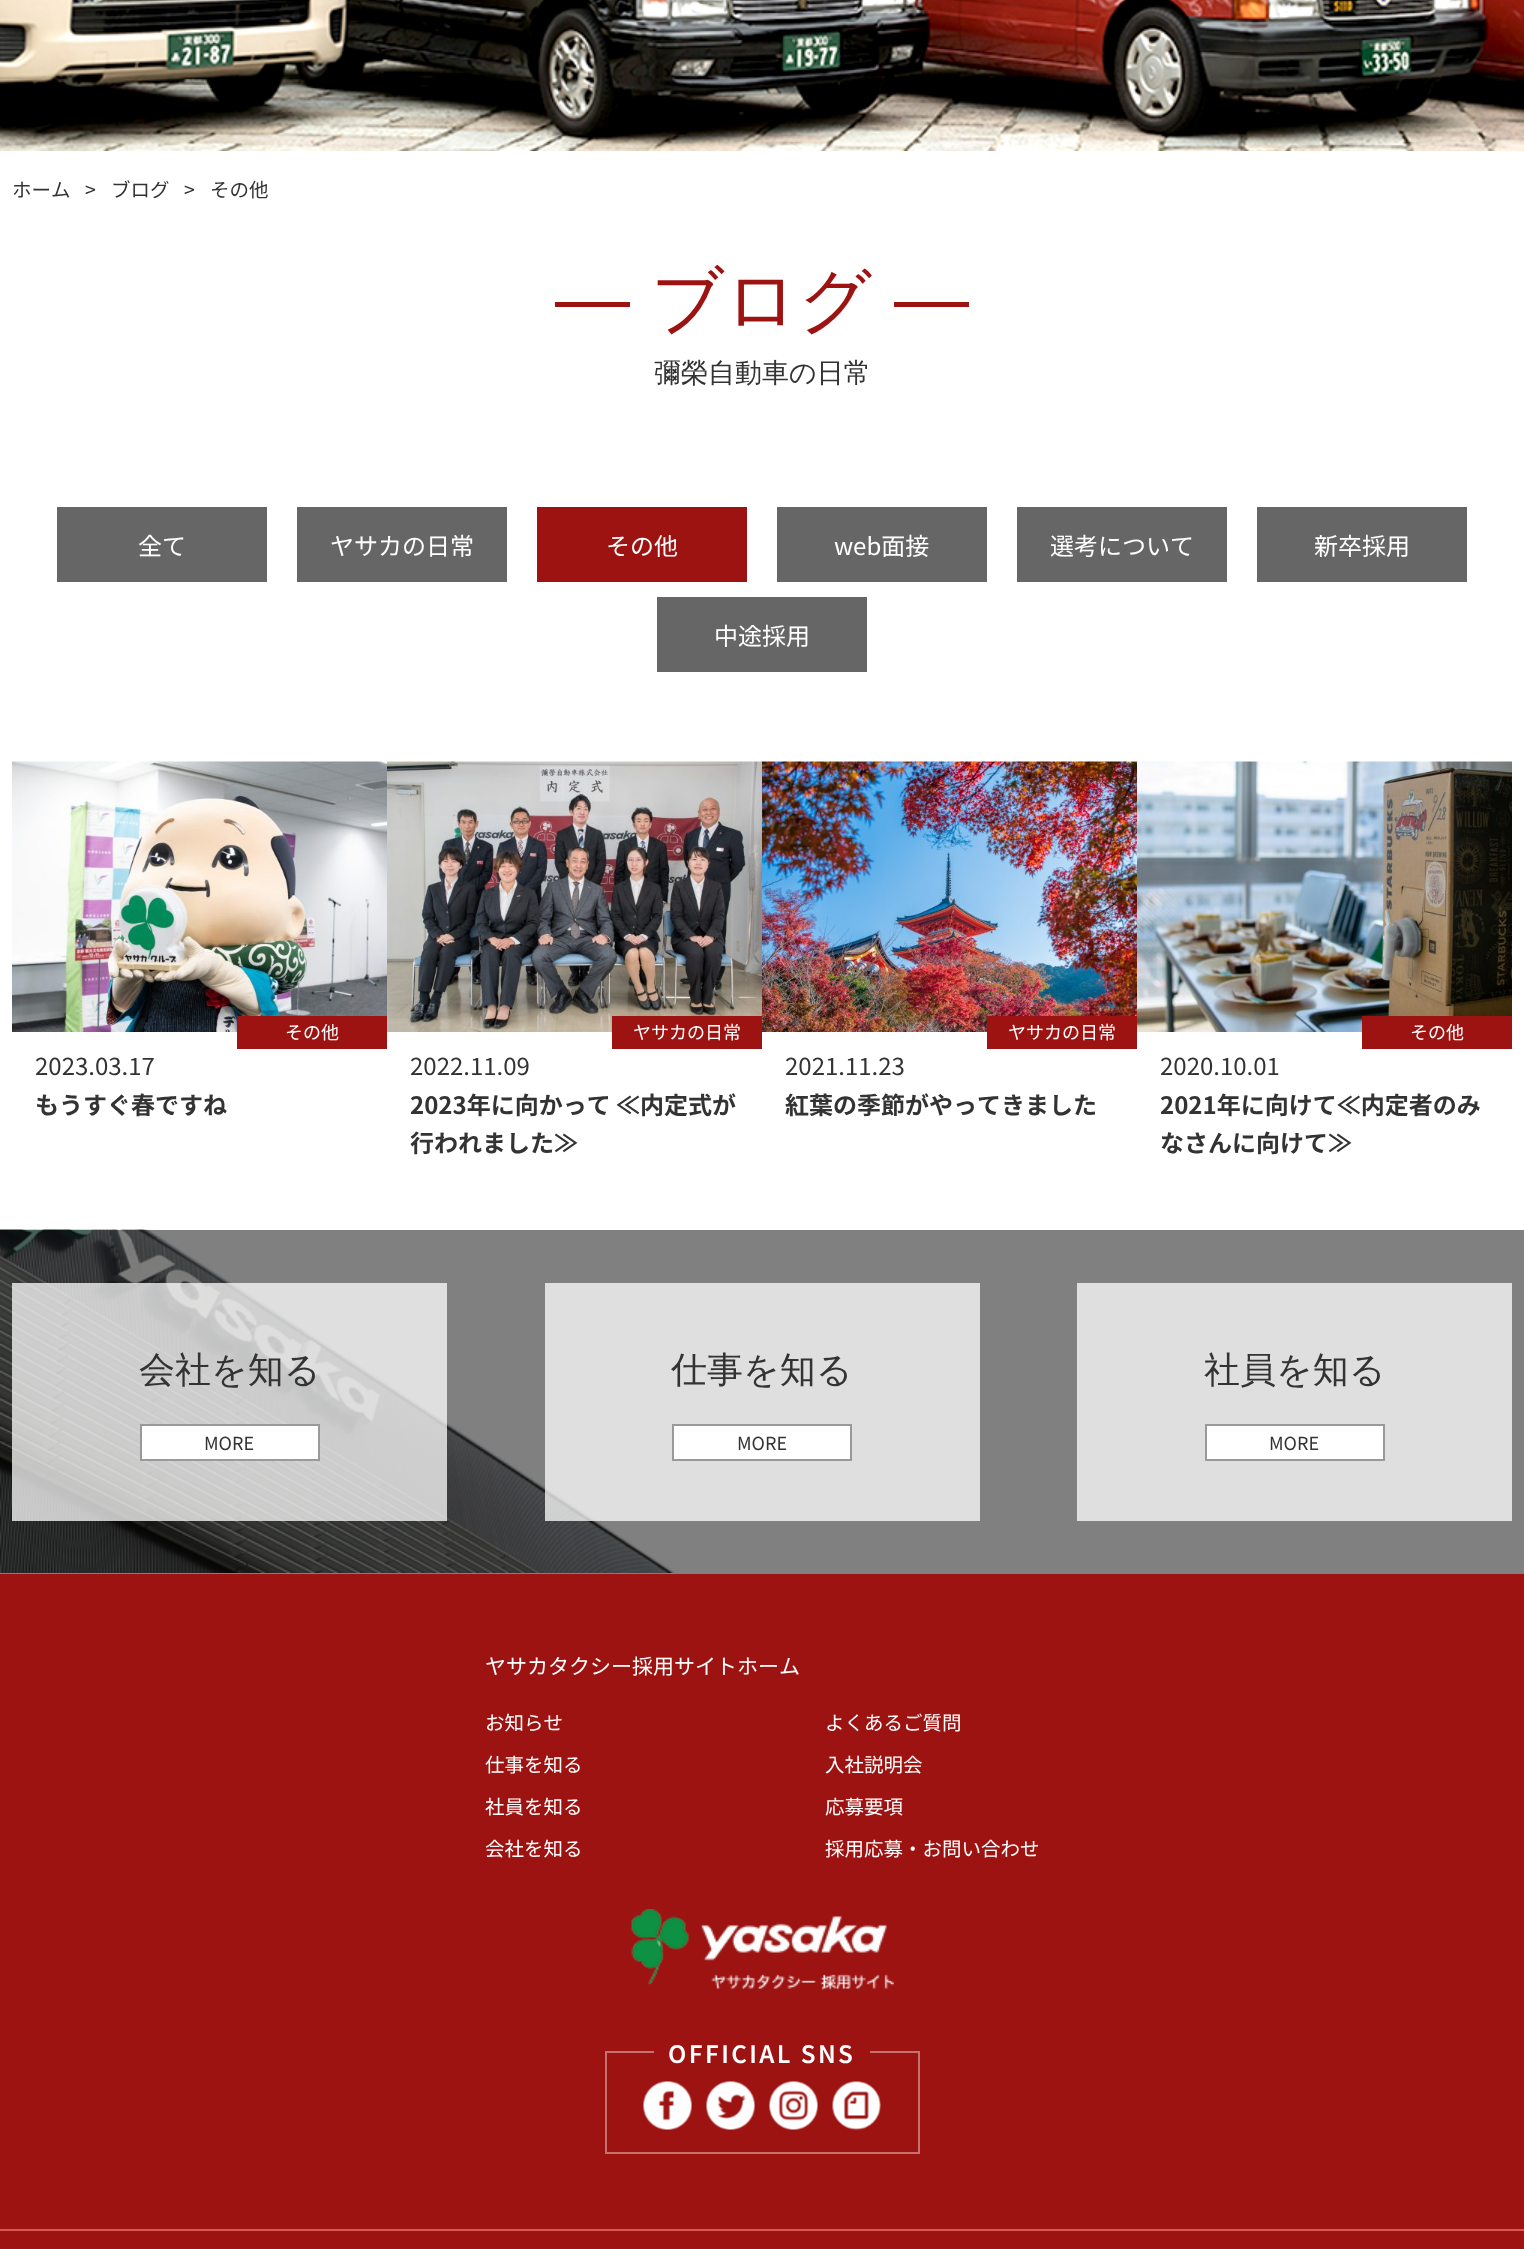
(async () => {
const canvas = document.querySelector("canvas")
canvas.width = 1524
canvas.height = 2249
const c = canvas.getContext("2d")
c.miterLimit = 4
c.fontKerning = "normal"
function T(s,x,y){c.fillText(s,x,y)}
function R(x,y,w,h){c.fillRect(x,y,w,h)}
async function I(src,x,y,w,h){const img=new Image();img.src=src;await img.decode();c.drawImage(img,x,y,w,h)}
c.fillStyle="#fff"
R(0,0,1524,2249)
c.fillStyle="#808080"
R(0,1230,1524,344)
await I("1.png",0,0,1524,151)
c.font="19.5px Noto Sans JP"
c.fillStyle="#333"
T("ホーム",12,197)
T(">",85,197)
T("ブログ",111,197)
T(">",184,197)
T("その他",210,197)
c.fillStyle="#9c1311"
R(555,302,75,5)
c.font="500 72px WenQuanYi Zen Hei"
T("ブログ",651,325)
R(894,302,75,5)
c.font="500 27px WenQuanYi Zen Hei"
c.fillStyle="#333"
T("彌榮自動車の日常",654,382)
c.fillStyle="#666"
R(57,507,210,75)
c.font="24px Noto Sans JP"
c.fillStyle="#fff"
T("全て",138,555)
c.fillStyle="#666"
R(297,507,210,75)
c.fillStyle="#fff"
T("ヤサカの日常",330,555)
c.fillStyle="#9c1311"
R(537,507,210,75)
c.fillStyle="#fff"
T("その他",606,555)
c.fillStyle="#666"
R(777,507,210,75)
c.fillStyle="#fff"
T("web面接",834,555)
c.fillStyle="#666"
R(1017,507,210,75)
c.fillStyle="#fff"
T("選考について",1050,555)
c.fillStyle="#666"
R(1257,507,210,75)
c.fillStyle="#fff"
T("新卒採用",1314,555)
c.fillStyle="#666"
R(657,597,210,75)
c.fillStyle="#fff"
T("中途採用",714,645)
await I("2.png",12,761,375,271)
c.fillStyle="#9c1311"
R(237,1016,150,33)
c.font="18px Noto Sans JP"
c.fillStyle="#fff"
T("その他",285,1039)
c.font="24px Noto Sans JP"
c.fillStyle="#333"
T("2023.03.17",35,1075)
c.font="bold 24px Noto Sans JP"
T("もうすぐ春ですね",35,1114)
await I("3.png",387,761,375,271)
c.fillStyle="#9c1311"
R(612,1016,150,33)
c.font="18px Noto Sans JP"
c.fillStyle="#fff"
T("ヤサカの日常",633,1039)
c.font="24px Noto Sans JP"
c.fillStyle="#333"
T("2022.11.09",410,1075)
c.font="bold 24px Noto Sans JP"
T("2023年に向かって ≪内定式が",410,1114)
T("行われました≫",410,1152)
await I("4.png",762,761,375,271)
c.fillStyle="#9c1311"
R(987,1016,150,33)
c.font="18px Noto Sans JP"
c.fillStyle="#fff"
T("ヤサカの日常",1008,1039)
c.font="24px Noto Sans JP"
c.fillStyle="#333"
T("2021.11.23",785,1075)
c.font="bold 24px Noto Sans JP"
T("紅葉の季節がやってきました",785,1114)
await I("5.png",1137,761,375,271)
c.fillStyle="#9c1311"
R(1362,1016,150,33)
c.font="18px Noto Sans JP"
c.fillStyle="#fff"
T("その他",1410,1039)
c.font="24px Noto Sans JP"
c.fillStyle="#333"
T("2020.10.01",1160,1075)
c.font="bold 24px Noto Sans JP"
T("2021年に向けて≪内定者のみ",1160,1114)
T("なさんに向けて≫",1160,1152)
await I("6.png",0,1229,675,344)
c.fillStyle="#ffffffbf"
R(12,1283,435,238)
c.font="500 36px WenQuanYi Zen Hei"
c.fillStyle="#333"
T("会社を知る",139,1382)
c.fillStyle="#fff"
c.beginPath()
c.rect(141,1425,178,35)
c.fill()
c.strokeStyle="#999"
c.lineWidth=2
c.stroke()
c.font="18px Noto Sans JP"
c.fillStyle="#333"
T("MORE",204,1450)
c.fillStyle="#ffffffbf"
R(545,1283,435,238)
c.font="500 36px WenQuanYi Zen Hei"
c.fillStyle="#333"
T("仕事を知る",671,1382)
c.fillStyle="#fff"
c.beginPath()
c.rect(673,1425,178,35)
c.fill()
c.stroke()
c.font="18px Noto Sans JP"
c.fillStyle="#333"
T("MORE",737,1450)
c.fillStyle="#dfdfdf"
R(1077,1283,435,238)
c.font="500 36px WenQuanYi Zen Hei"
c.fillStyle="#333"
T("社員を知る",1204,1382)
c.fillStyle="#fff"
c.beginPath()
c.rect(1206,1425,178,35)
c.fill()
c.stroke()
c.font="18px Noto Sans JP"
c.fillStyle="#333"
T("MORE",1269,1450)
c.fillStyle="#9c1311"
R(0,1574,1524,675)
c.font="21px Noto Sans JP"
c.fillStyle="#fff"
T("ヤサカタクシー採用サイトホーム",485,1674)
c.font="19.5px Noto Sans JP"
T("お知らせ",485,1730)
T("仕事を知る",485,1772)
T("社員を知る",485,1814)
T("会社を知る",485,1856)
T("よくあるご質問",825,1730)
T("入社説明会",825,1772)
T("応募要項",825,1814)
T("採用応募・お問い合わせ",825,1856)
await I("7.png",631,1909,263,81)
c.strokeStyle="#c47170"
c.strokeRect(606,2052,313,101)
c.fillStyle="#9c1311"
R(654,2051,216,2)
c.letterSpacing="2.4px"
c.font="600 24px Noto Sans JP"
c.fillStyle="#fff"
T("OFFICIAL SNS",668,2063)
await I("8.png",643,2081,49,49)
await I("9.png",706,2081,49,49)
await I("10.png",769,2081,49,49)
await I("11.png",832,2081,49,49)
c.fillStyle="#d75a59"
R(0,2229,1524,2)
})()
